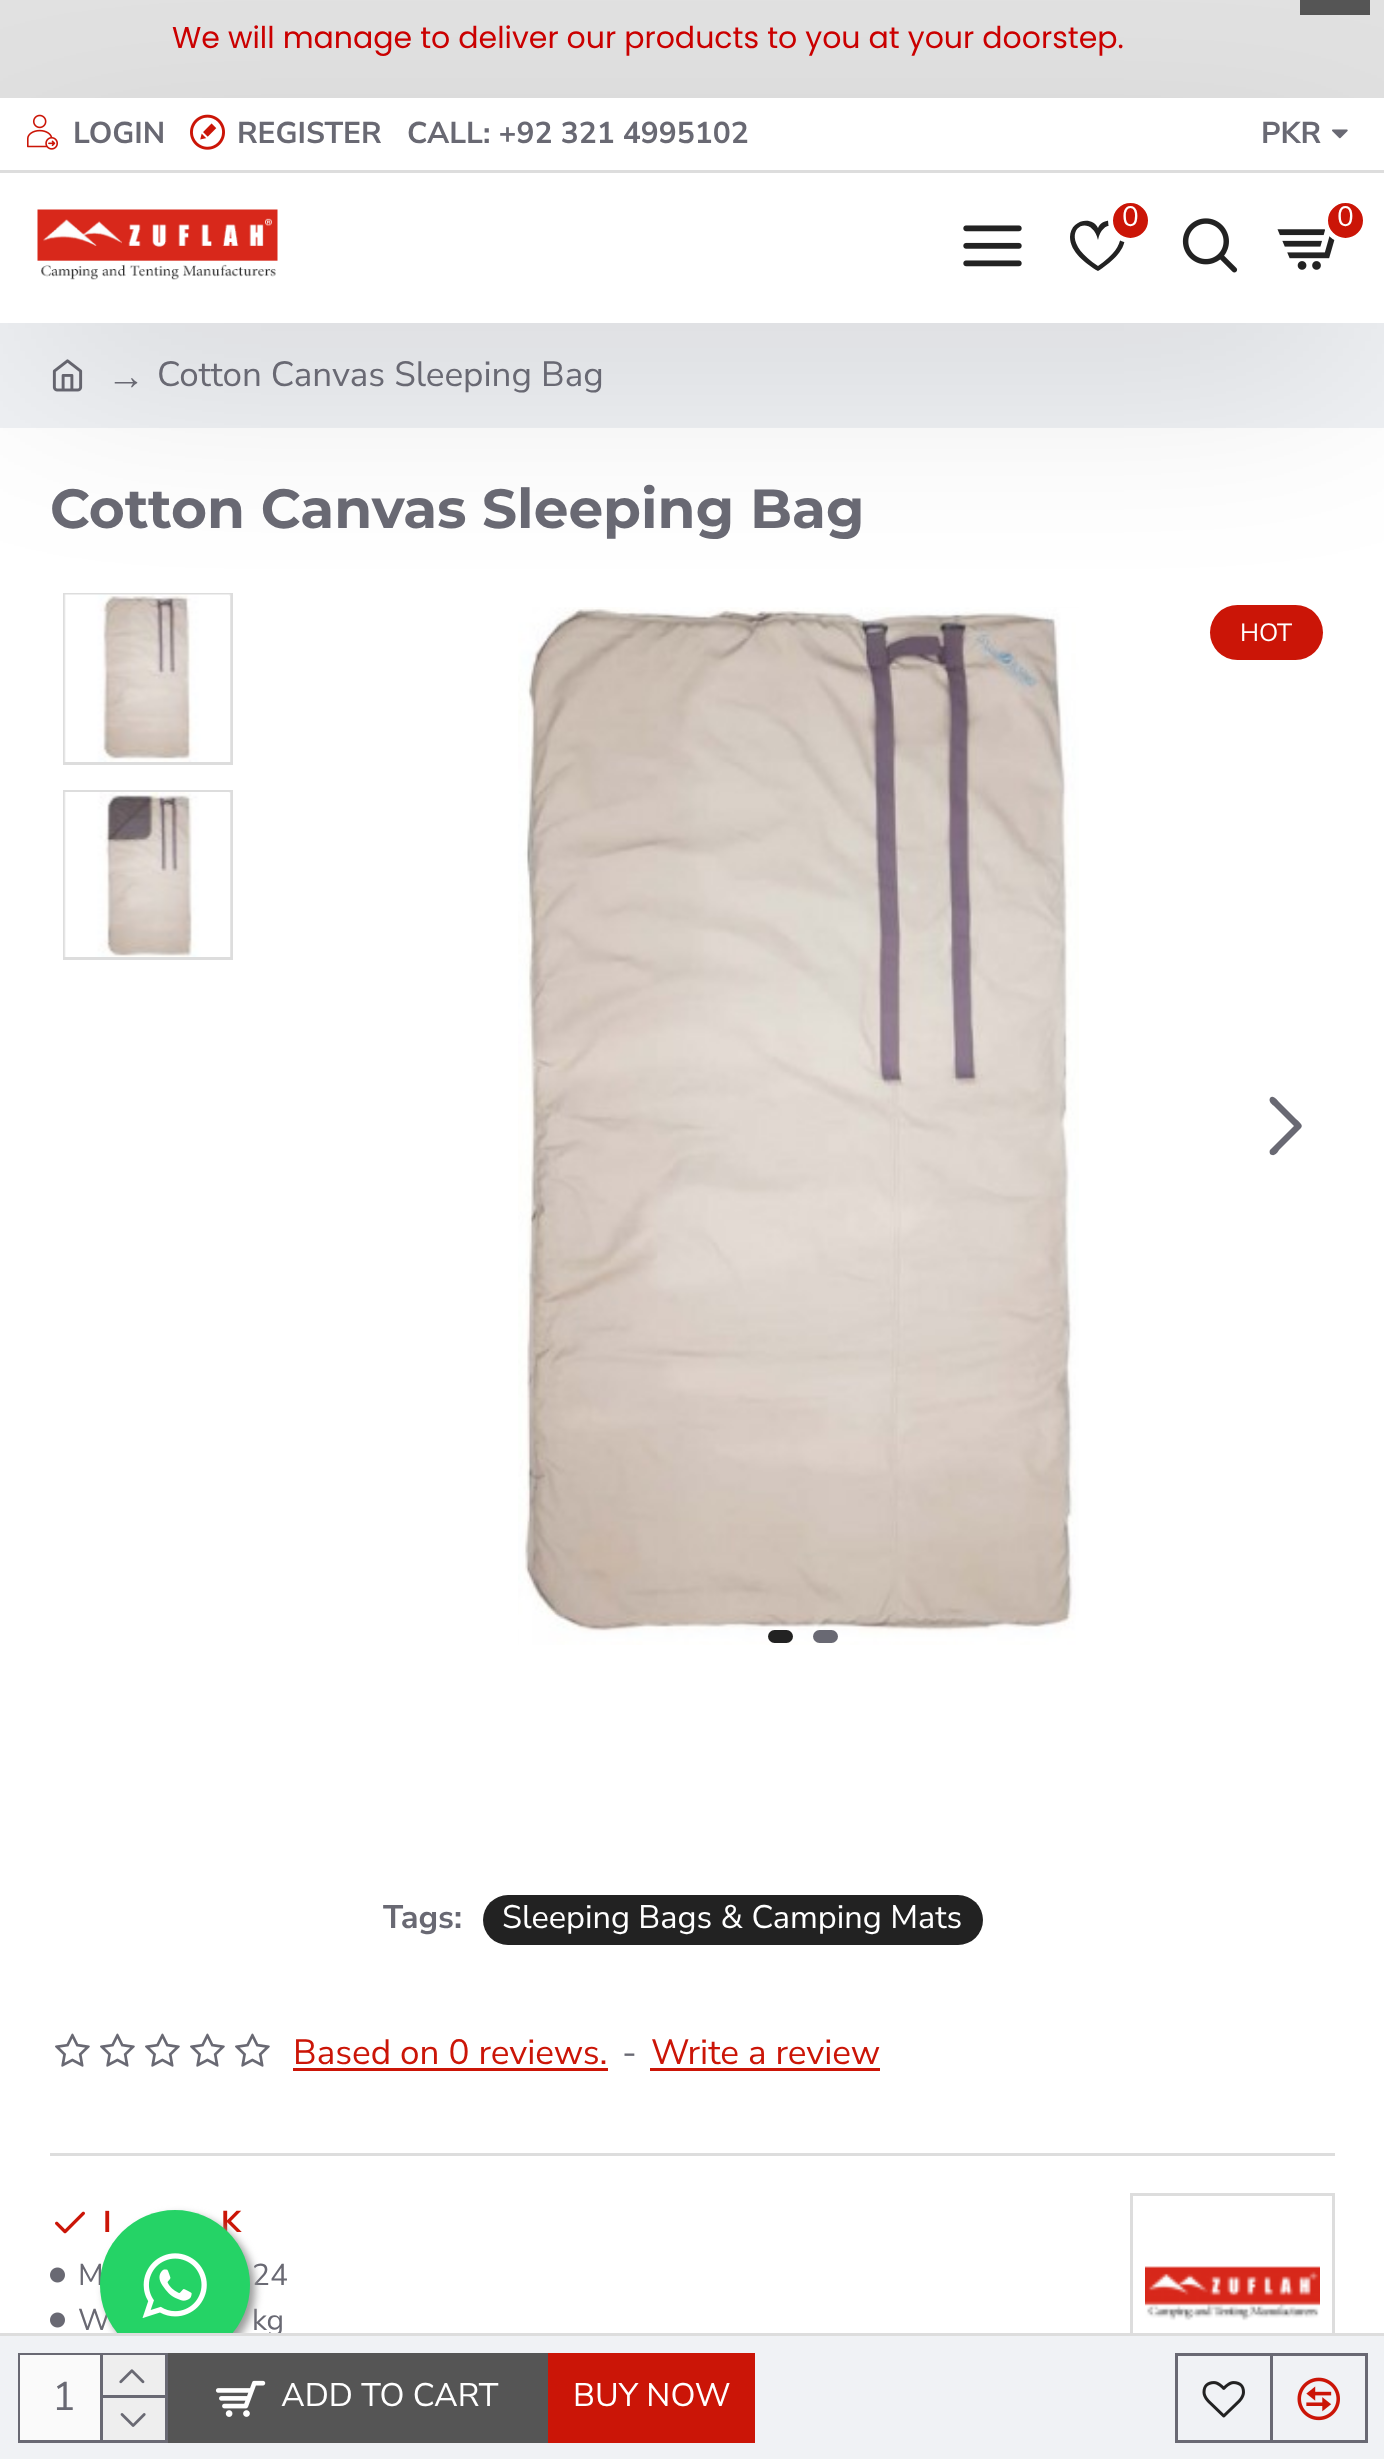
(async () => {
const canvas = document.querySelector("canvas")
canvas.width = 1384
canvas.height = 2459
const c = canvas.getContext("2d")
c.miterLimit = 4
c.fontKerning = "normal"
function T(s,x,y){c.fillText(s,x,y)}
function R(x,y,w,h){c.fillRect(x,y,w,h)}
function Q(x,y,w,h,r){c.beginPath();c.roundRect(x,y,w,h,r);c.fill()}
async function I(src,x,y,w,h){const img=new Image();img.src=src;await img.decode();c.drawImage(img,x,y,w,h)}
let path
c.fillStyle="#fff"
R(0,0,1384,2459)
c.fillStyle="#e1e1e1"
R(0,0,1384,98)
c.fillStyle="#555"
R(1300,0,70,15)
c.font="30px Poppins"
c.fillStyle="#c00"
T("We will manage to deliver our products to you at your doorstep.",172,48)
c.fillStyle="#f0f2f5"
R(0,323,1384,105)
await I("8.png",52,359,31,33)
c.strokeStyle="#ddd"
c.lineWidth=3
c.strokeRect(64.5,594.5,167,169)
await I("9.png",64,594,167,168)
await I("11.png",518,607,561,1038)
c.fillStyle="#cb1507"
Q(1210,605,113,55,27.5)
c.fillStyle="#00000033"
c.filter="blur(112.5px)"
c.beginPath()
c.rect(25,235,1335,100)
c.fill()
c.filter="none"
c.fillStyle="#fff"
R(0,98,1384,72)
c.fillStyle="#ddd"
R(0,170,1384,3)
await I("1.png",27,114,31,36)
c.font="bold 30px Nunito Sans"
c.fillStyle="#696973"
T("LOGIN",73,143)
await I("2.png",190,114,35,36)
T("REGISTER",237,143)
T("CALL: +92 321 4995102",407,143)
T("PKR",1261,143)
await I("3.png",1332,129,16,10)
c.fillStyle="#fff"
R(0,173,1384,150)
await I("4.png",37,209,241,71)
await I("5.png",963,225,59,42)
c.fillStyle="#222"
path = new Path2D("M1098 240c7-32 47-5 0 26c-48-31-8-58 0-26zm-28-3c0 15 16 27 28 34c11-7 27-19 27-34c0-4-1-7-3-10c-6-8-20-9-24 1c-6-13-28-8-28 9z")
c.fill(path)
c.fillStyle="#cb1507"
c.beginPath()
c.arc(1130.5,220.5,20,0,7)
c.fill()
c.strokeStyle="#fff"
c.lineWidth=5
c.stroke()
c.font="28px Nunito Sans"
c.fillStyle="#fff"
T("0",1122,226)
await I("6.png",1182,218,56,55)
await I("7.png",1277,229,58,41)
c.fillStyle="#cb1507"
c.beginPath()
c.arc(1345.5,220.5,20,0,7)
c.fill()
c.stroke()
c.fillStyle="#fff"
T("0",1337,226)
c.font="38px Liberation Serif"
c.fillStyle="#696973"
T("→",107,389)
c.font="35px Nunito Sans"
T("Cotton Canvas Sleeping Bag",157,386)
c.font="bold 55px Montserrat"
T("Cotton Canvas Sleeping Bag",50,528)
c.strokeStyle="#ddd"
c.lineWidth=3
c.strokeRect(64.5,791.5,167,167)
await I("10.png",64,792,167,165)
c.font="25px Nunito Sans"
c.fillStyle="#fff"
T("HOT",1240,641)
c.fillStyle="#696973"
path = new Path2D("M1301 1128l-22 22c-1 2-4 6-7 5c-2 0-3-3-2-5l24-24l-20-20c-1-1-6-4-4-8c3-4 8 3 9 4l17 17c2 2 8 6 5 9z")
c.fill(path)
c.fillStyle="#222"
Q(768,1630,25,13,6.5)
c.fillStyle="#696973"
Q(813,1630,25,13,6.5)
c.font="bold 32.5px Nunito Sans"
T("Tags:",383,1928)
c.fillStyle="#222"
Q(483,1895,500,50,25)
c.font="32.5px Nunito Sans"
c.fillStyle="#fff"
T("Sleeping Bags & Camping Mats",502,1928)
c.fillStyle="#ddd"
R(50,2153,1285,3)
await I("12.png",55,2033,35,34)
await I("12.png",100,2033,35,34)
await I("12.png",145,2033,35,34)
await I("12.png",190,2033,35,34)
await I("12.png",235,2033,35,34)
c.font="35px Nunito Sans"
c.fillStyle="#cb1507"
T("Based on 0 reviews.",293,2064)
R(293,2068,315,3)
c.fillStyle="#696973"
T("-",622,2064)
c.fillStyle="#cb1507"
T("Write a review",651,2064)
R(650,2068,230,3)
await I("13.png",55,2211,30,23)
c.font="bold 30px Nunito Sans"
T("I",103,2232)
T("K",221,2232)
await I("14.png",50,2267,15,16)
c.font="30px Nunito Sans"
c.fillStyle="#696973"
T("M",78,2285)
T("24",252,2285)
await I("14.png",50,2312,15,16)
T("W",78,2330)
T("kg",252,2330)
c.strokeRect(1131.5,2194.5,202,254)
await I("15.png",1145,2266,175,55)
c.fillStyle="#999"
c.filter="blur(4px)"
c.beginPath()
c.roundRect(105,2215,150,150,75)
c.fill()
c.filter="none"
c.fillStyle="#25d366"
c.beginPath()
c.arc(175,2285,75,0,7)
c.fill()
c.fillStyle="#f0f2f5"
R(0,2336,1384,123)
c.fillStyle="#ddd"
R(0,2333,1384,3)
c.strokeStyle="#696973"
c.strokeRect(19.5,2354.5,147,87)
c.fillStyle="#fafafa"
R(20,2355,80,85)
c.font="40px Nunito Sans"
c.fillStyle="#696973"
T("1",52,2410)
R(100,2355,3,85)
c.fillStyle="#eee"
R(103,2355,62,40)
c.fillStyle="#696973"
R(103,2395,62,3)
await I("16.png",119,2369,26,15)
c.fillStyle="#eee"
R(103,2398,62,42)
await I("17.png",120,2413,26,14)
c.fillStyle="#555"
R(168,2353,380,90)
await I("18.png",215,2380,51,37)
c.font="32.5px Nunito Sans"
c.fillStyle="#fff"
T("ADD TO CART",281,2406)
c.fillStyle="#cb1507"
R(548,2353,207,90)
c.fillStyle="#fff"
T("BUY NOW",573,2406)
c.strokeRect(1176.5,2354.5,95,87)
await I("19.png",1202,2381,43,37)
c.strokeRect(1271.5,2354.5,95,87)
await I("20.png",1297,2377,43,44)
await I("21.png",142,2253,65,65)
})()
